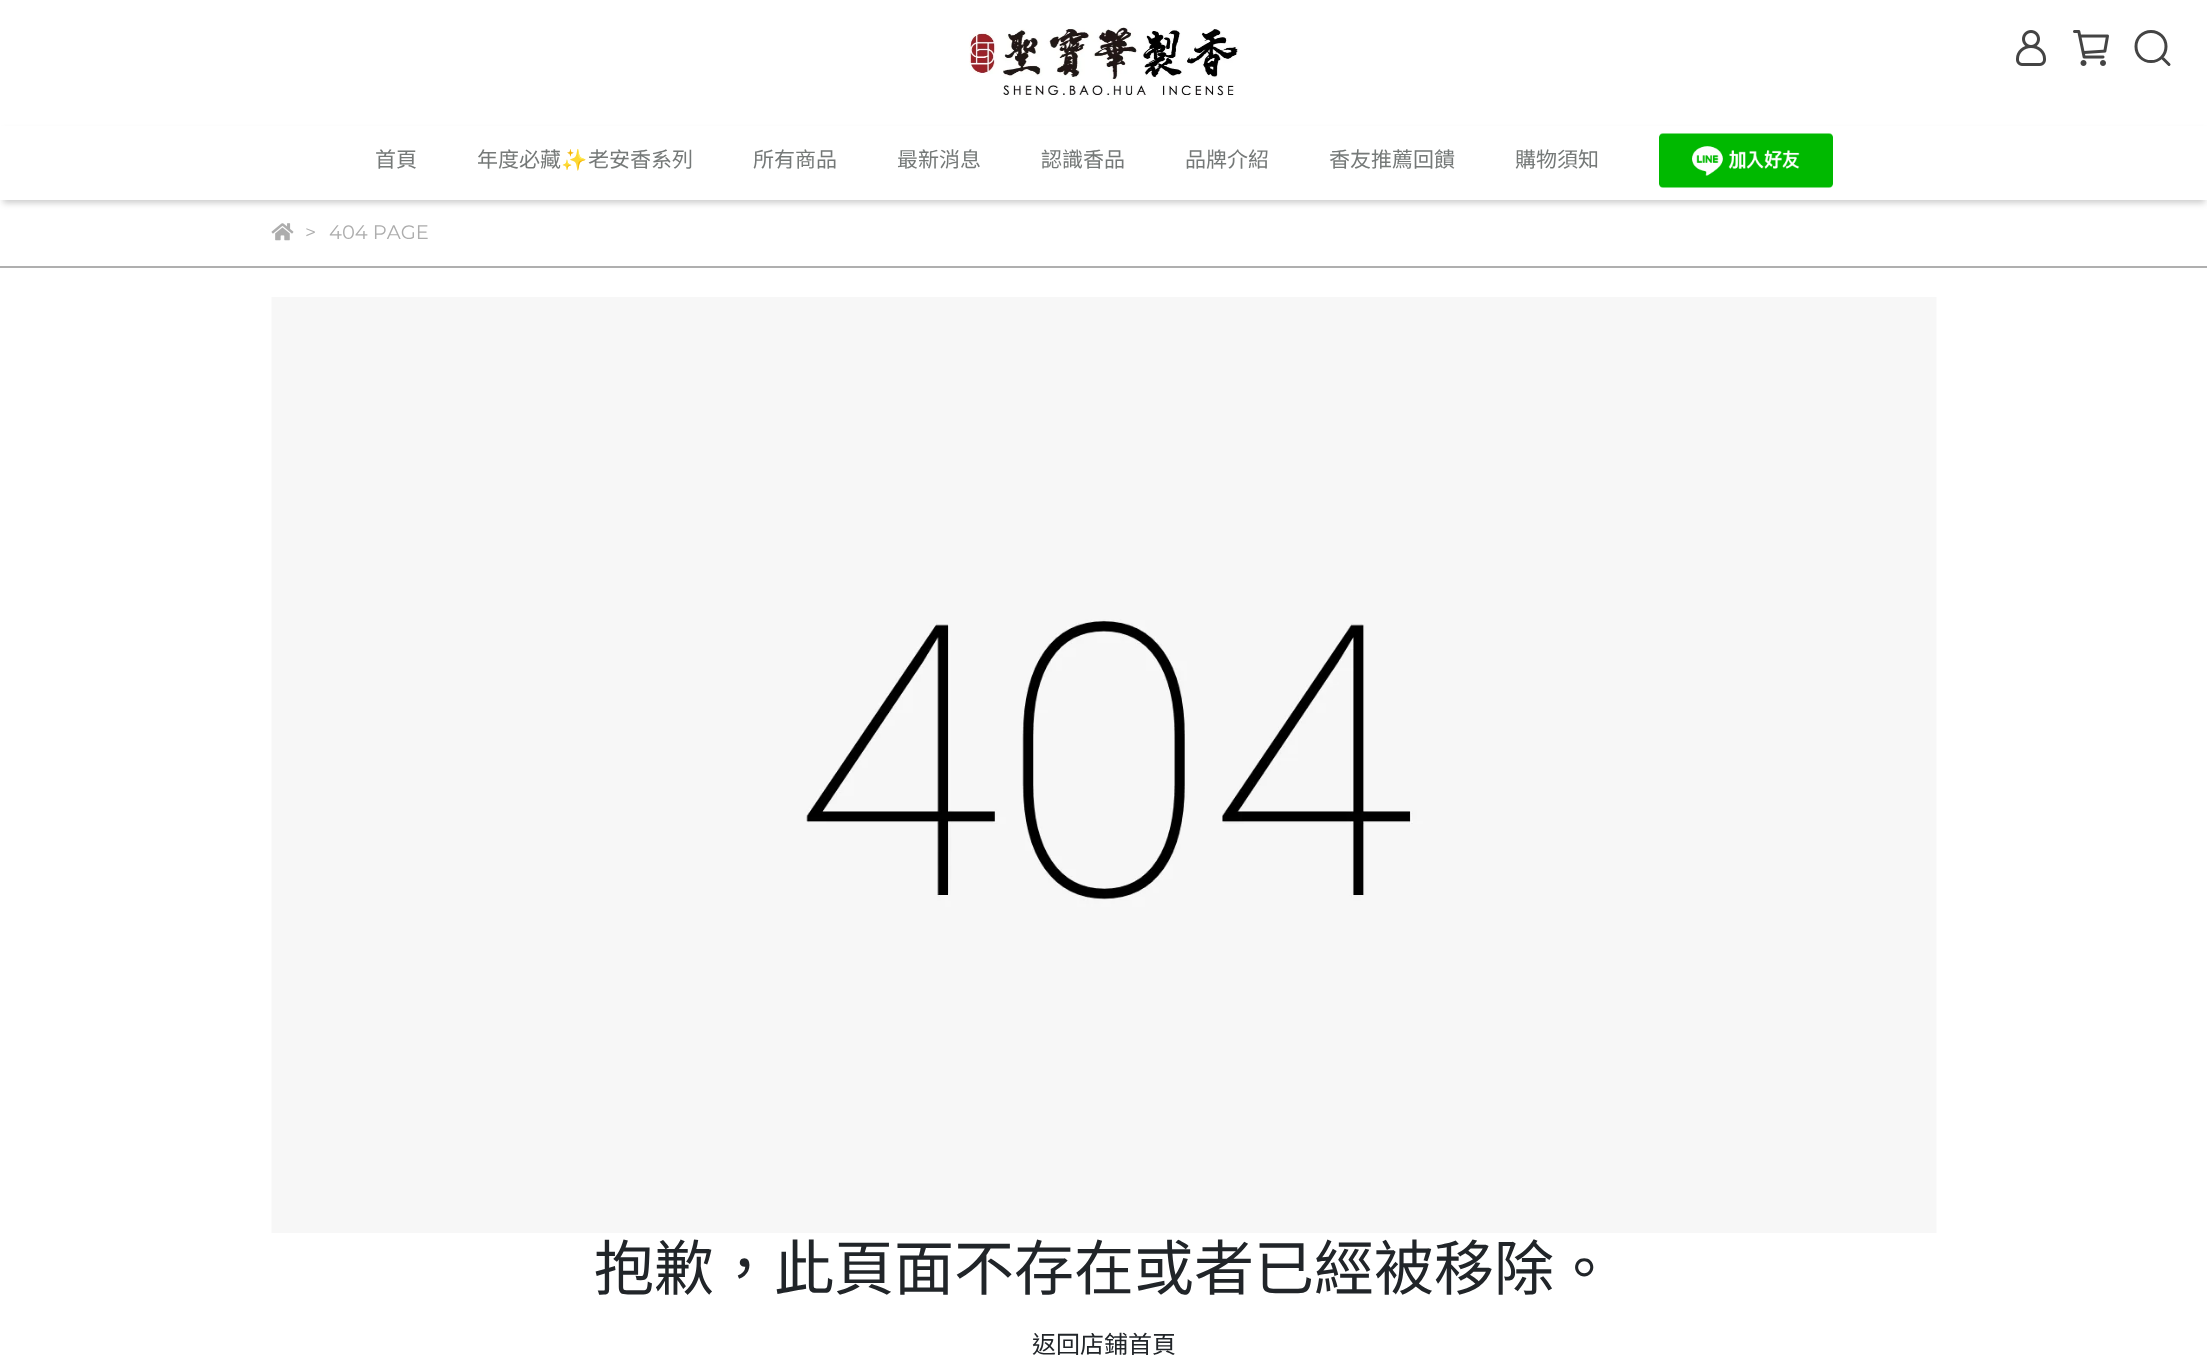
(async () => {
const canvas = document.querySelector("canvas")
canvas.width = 2207
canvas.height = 1359
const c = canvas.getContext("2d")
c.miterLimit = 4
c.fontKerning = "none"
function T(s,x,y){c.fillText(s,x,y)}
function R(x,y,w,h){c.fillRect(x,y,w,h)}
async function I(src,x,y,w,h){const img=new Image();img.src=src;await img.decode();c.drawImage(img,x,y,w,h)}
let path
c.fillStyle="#fff"
R(0,0,2207,1359)
await I("1.png",969,27,270,69)
await I("2.png",2016,30,30,36)
await I("3.png",2073,30,36,36)
path = new Path2D("M2166 46.5c0 8.5-6.5 15-15 15c-8.5 0-15-6.5-15-15c0-8.5 6.5-15 15-15c8.5 0 15 6.5 15 15zm-3 12l6 6")
c.strokeStyle="#444"
c.lineWidth=3
c.lineCap="round"
c.lineJoin="round"
c.stroke(path)
c.fillStyle="#00000033"
c.filter="blur(3px)"
c.beginPath()
c.rect(3,131,2202,72)
c.fill()
c.filter="none"
c.fillStyle="#fff"
R(0,126,2207,74)
c.font="21px Noto Sans CJK TC"
c.fillStyle="#757978"
T("首頁",375,167)
T("年度必藏",477,167)
c.font="21px Noto Color Emoji"
T("✨",561,167)
c.font="21px Noto Sans CJK TC"
T("老安香系列",588,167)
T("所有商品",753,167)
T("最新消息",897,167)
T("認識香品",1041,167)
T("品牌介紹",1185,167)
T("香友推薦回饋",1329,167)
T("購物須知",1515,167)
await I("4.png",1659,133,174,55)
c.fillStyle="#afafaf"
R(0,266,2207,2)
await I("5.png",271,223,23,18)
c.font="100 19.5px Montserrat"
c.fillStyle="#adadad"
T(">",305,239)
T("404 PAGE",329,239)
await I("6.png",271,297,1666,936)
c.font="60px Noto Sans CJK TC"
c.fillStyle="#212529"
T("抱歉，此頁面不存在或者已經被移除。",594,1290)
c.font="24px Noto Sans CJK TC"
T("返回店鋪首頁",1032,1353)
})()
